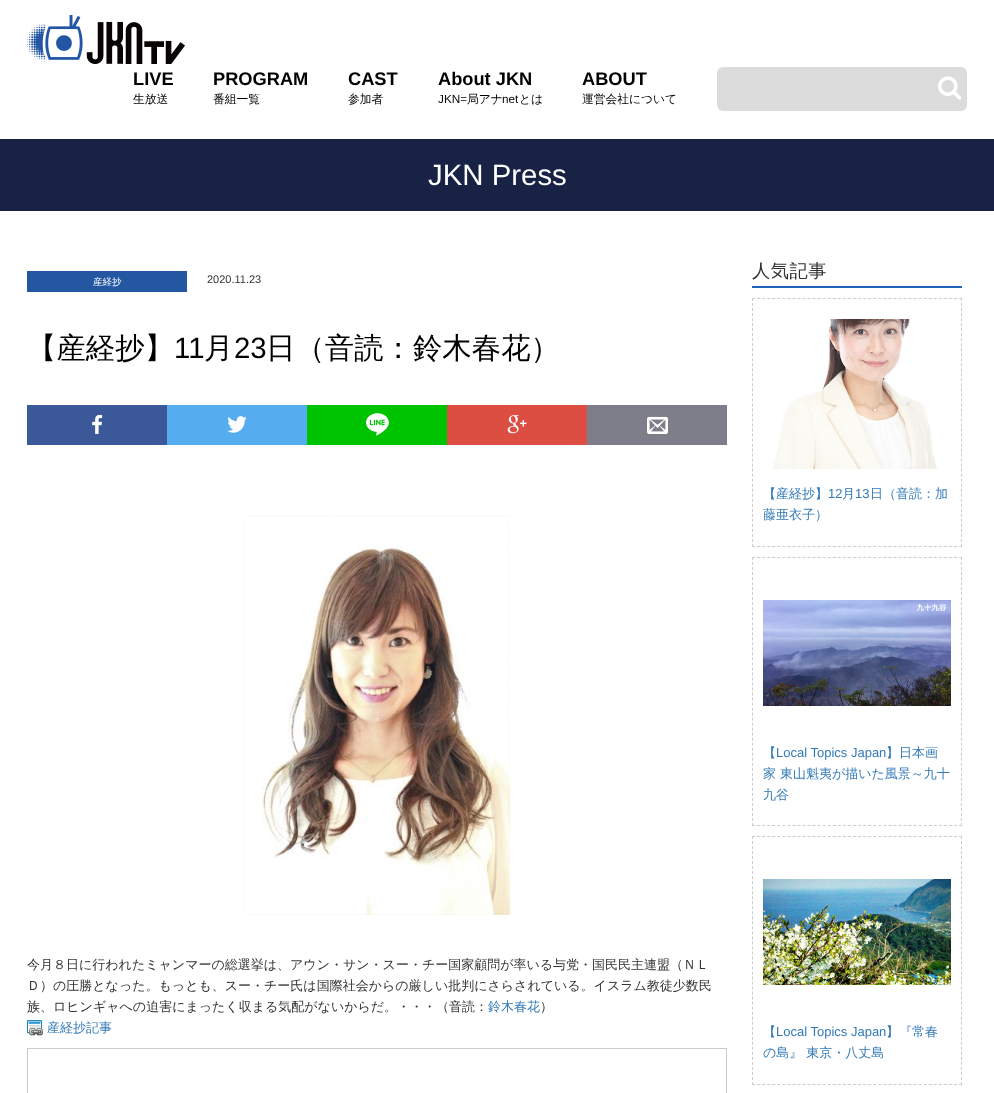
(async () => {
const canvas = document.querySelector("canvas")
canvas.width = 994
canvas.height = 1093
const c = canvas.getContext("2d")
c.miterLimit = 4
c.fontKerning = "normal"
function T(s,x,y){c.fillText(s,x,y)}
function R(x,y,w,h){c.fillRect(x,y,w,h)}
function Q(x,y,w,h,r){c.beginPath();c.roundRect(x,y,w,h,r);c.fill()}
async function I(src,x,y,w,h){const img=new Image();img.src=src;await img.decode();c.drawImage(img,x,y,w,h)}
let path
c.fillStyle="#fff"
R(0,0,994,1093)
await I("1.png",27,15,158,49)
c.font="bold 18.25px Liberation Sans"
c.fillStyle="#000"
T("LIVE",133,85)
c.font="500 11.75px WenQuanYi Zen Hei"
T("生放送",133,103)
c.font="bold 18.25px Liberation Sans"
T("PROGRAM",213,85)
c.font="500 11.75px WenQuanYi Zen Hei"
T("番組一覧",213,103)
c.font="bold 18.25px Liberation Sans"
T("CAST",348,85)
c.font="500 11.75px WenQuanYi Zen Hei"
T("参加者",348,103)
c.font="bold 18.25px Liberation Sans"
T("About JKN",438,85)
c.font="11.75px Liberation Sans"
T("JKN=",438,103)
c.font="500 11.75px WenQuanYi Zen Hei"
T("局アナ",467,103)
c.font="11.75px Liberation Sans"
T("net",502,103)
c.font="500 11.75px WenQuanYi Zen Hei"
T("とは",519,103)
c.font="bold 18.25px Liberation Sans"
T("ABOUT",582,85)
c.font="500 11.75px WenQuanYi Zen Hei"
T("運営会社について",582,103)
c.fillStyle="#dcdcdc"
Q(717,67,250,44,6)
await I("2.png",938,76,24,24)
c.fillStyle="#172244"
R(0,139,994,72)
c.font="29.4px Liberation Sans"
c.fillStyle="#fff"
T("JKN Press",428,185)
c.fillStyle="#2357a2"
R(27,271,160,21)
c.font="500 9.5px WenQuanYi Zen Hei"
c.fillStyle="#fff"
T("産経抄",93,285)
c.font="11px Liberation Sans"
c.fillStyle="#333"
T("2020.11.23",207,283)
c.font="500 29.4px WenQuanYi Zen Hei"
c.fillStyle="#000"
T("【産経抄】",27,358)
c.font="29.4px Liberation Sans"
T("11",174,358)
c.font="500 29.4px WenQuanYi Zen Hei"
T("月",204,358)
c.font="29.4px Liberation Sans"
T("23",234,358)
c.font="500 29.4px WenQuanYi Zen Hei"
T("日（音読：鈴木春花）",266,358)
c.fillStyle="#3b5998"
R(27,405,140,40)
await I("3.png",92,414,11,20)
c.fillStyle="#55acee"
R(167,405,140,40)
await I("4.png",227,416,20,17)
c.fillStyle="#00c300"
R(307,405,140,40)
await I("5.png",366,413,23,23)
c.fillStyle="#dc4e41"
R(447,405,140,40)
await I("6.png",507,415,20,19)
c.fillStyle="#7e7e8a"
R(587,405,140,40)
await I("7.png",647,416,21,18)
await I("8.png",244,515,266,400)
c.font="500 13px WenQuanYi Zen Hei"
c.fillStyle="#333"
T("今月８日に行われたミャンマーの総選挙は、アウン・サン・スー・チー国家顧問が率いる与党・国民民主連盟（ＮＬ",27,969)
T("Ｄ）の圧勝となった。もっとも、スー・チー氏は国際社会からの厳しい批判にさらされている。イスラム教徒少数民",27,990)
T("族、ロヒンギャへの迫害にまったく収まる気配がないからだ。・・・（音読：",27,1011)
c.fillStyle="#337ab7"
T("鈴木春花",488,1011)
c.fillStyle="#333"
T("）",540,1011)
await I("9.png",27,1020,16,16)
c.fillStyle="#337ab7"
T("産経抄記事",47,1032)
c.strokeStyle="#ccc"
c.strokeRect(27.5,1048.5,699,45)
c.fillStyle="#1d65b8"
R(752,286,210,2)
c.letterSpacing="0.5px"
c.font="500 18.25px WenQuanYi Zen Hei"
c.fillStyle="#333"
T("人気記事",752,277)
path = new Path2D("M752 298.5h210")
c.setLineDash([3,2.05])
c.stroke(path)
path = new Path2D("M961.5 298v249")
c.setLineDash([3,2.02])
c.stroke(path)
path = new Path2D("M752 546.5h210")
c.setLineDash([3,2.05])
c.stroke(path)
path = new Path2D("M752.5 298v249")
c.setLineDash([3,2.02])
c.stroke(path)
await I("10.png",772,319,165,150)
c.letterSpacing="0px"
c.font="500 13px WenQuanYi Zen Hei"
c.fillStyle="#337ab7"
T("【産経抄】",763,498)
c.font="13px Liberation Sans"
T("12",828,498)
c.font="500 13px WenQuanYi Zen Hei"
T("月",842,498)
c.font="13px Liberation Sans"
T("13",855,498)
c.font="500 13px WenQuanYi Zen Hei"
T("日（音読：加",870,498)
T("藤亜衣子）",763,519)
path = new Path2D("M752 557.5h210")
c.setLineDash([3,2.05])
c.stroke(path)
path = new Path2D("M961.5 557v269")
c.setLineDash([3,2.02])
c.stroke(path)
path = new Path2D("M752 825.5h210")
c.setLineDash([3,2.05])
c.stroke(path)
path = new Path2D("M752.5 557v269")
c.setLineDash([3,2.02])
c.stroke(path)
await I("11.png",763,600,188,106)
T("【",763,757)
c.font="13px Liberation Sans"
T("Local Topics Japan",776,757)
c.font="500 13px WenQuanYi Zen Hei"
T("】日本画",886,757)
T("家 東山魁夷が描いた風景～九十",763,778)
T("九谷",763,799)
path = new Path2D("M752 836.5h210")
c.setLineDash([3,2.05])
c.stroke(path)
path = new Path2D("M961.5 836v249")
c.setLineDash([3,2.02])
c.stroke(path)
path = new Path2D("M752 1084.5h210")
c.setLineDash([3,2.05])
c.stroke(path)
path = new Path2D("M752.5 836v249")
c.setLineDash([3,2.02])
c.stroke(path)
await I("12.png",763,879,188,106)
T("【",763,1036)
c.font="13px Liberation Sans"
T("Local Topics Japan",776,1036)
c.font="500 13px WenQuanYi Zen Hei"
T("】『常春",886,1036)
T("の島』 東京・八丈島",763,1057)
})()
